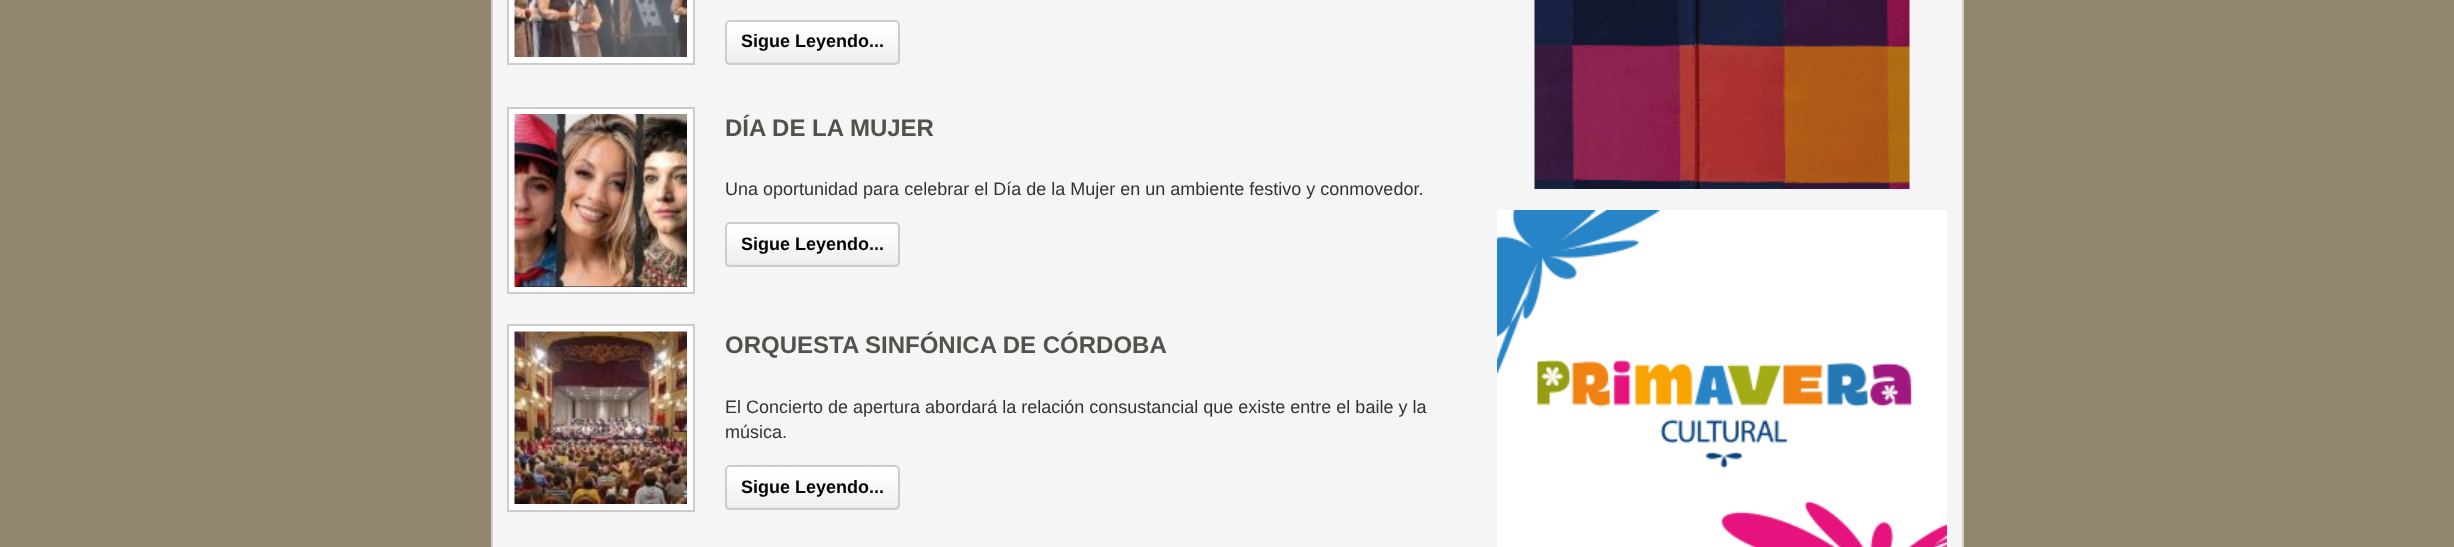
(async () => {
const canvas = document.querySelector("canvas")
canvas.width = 2454
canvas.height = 547
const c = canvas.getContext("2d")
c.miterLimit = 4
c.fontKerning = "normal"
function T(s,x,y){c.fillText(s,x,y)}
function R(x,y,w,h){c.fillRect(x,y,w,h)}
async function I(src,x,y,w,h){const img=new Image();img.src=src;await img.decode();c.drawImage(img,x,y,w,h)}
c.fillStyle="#92856d"
R(0,0,2454,547)
c.fillStyle="#f5f5f5"
c.beginPath()
c.rect(492,-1,1471,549)
c.fill()
c.strokeStyle="#d3d1c7"
c.lineWidth=2
c.stroke()
c.fillStyle="#fff"
c.beginPath()
c.rect(508,-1,186,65)
c.fill()
c.strokeStyle="#ccc"
c.stroke()
await I("1.png",514,0,173,57)
await I("2.png",725,21,175,44)
c.beginPath()
c.roundRect(726,21,173,43,4)
c.stroke()
c.font="bold 18px Liberation Sans"
c.fillStyle="#000"
T("Sigue Leyendo...",741,47)
c.fillStyle="#fff"
c.beginPath()
c.rect(508,108,186,185)
c.fill()
c.stroke()
c.fillStyle="#111"
R(515,286,172,1)
await I("3.png",514,114,173,173)
c.font="bold 24px Liberation Sans"
c.fillStyle="#50524b"
T("DÍA DE LA MUJER",725,136)
c.font="18px Liberation Sans"
c.fillStyle="#333"
T("Una oportunidad para celebrar el Día de la Mujer en un ambiente festivo y conmovedor.",725,195)
await I("4.png",725,223,175,44)
c.beginPath()
c.roundRect(726,223,173,43,4)
c.stroke()
c.font="bold 18px Liberation Sans"
c.fillStyle="#000"
T("Sigue Leyendo...",741,250)
c.fillStyle="#fff"
c.beginPath()
c.rect(508,325,186,186)
c.fill()
c.stroke()
await I("5.png",514,331,173,173)
c.font="bold 24px Liberation Sans"
c.fillStyle="#50524b"
T("ORQUESTA SINFÓNICA DE CÓRDOBA",725,353)
c.font="18px Liberation Sans"
c.fillStyle="#333"
T("El Concierto de apertura abordará la relación consustancial que existe entre el baile y la",725,413)
T("música.",725,438)
await I("6.png",725,466,175,44)
c.beginPath()
c.roundRect(726,466,173,43,4)
c.stroke()
c.font="bold 18px Liberation Sans"
c.fillStyle="#000"
T("Sigue Leyendo...",741,493)
await I("7.png",1534,0,376,189)
await I("8.png",1497,210,450,337)
})()
